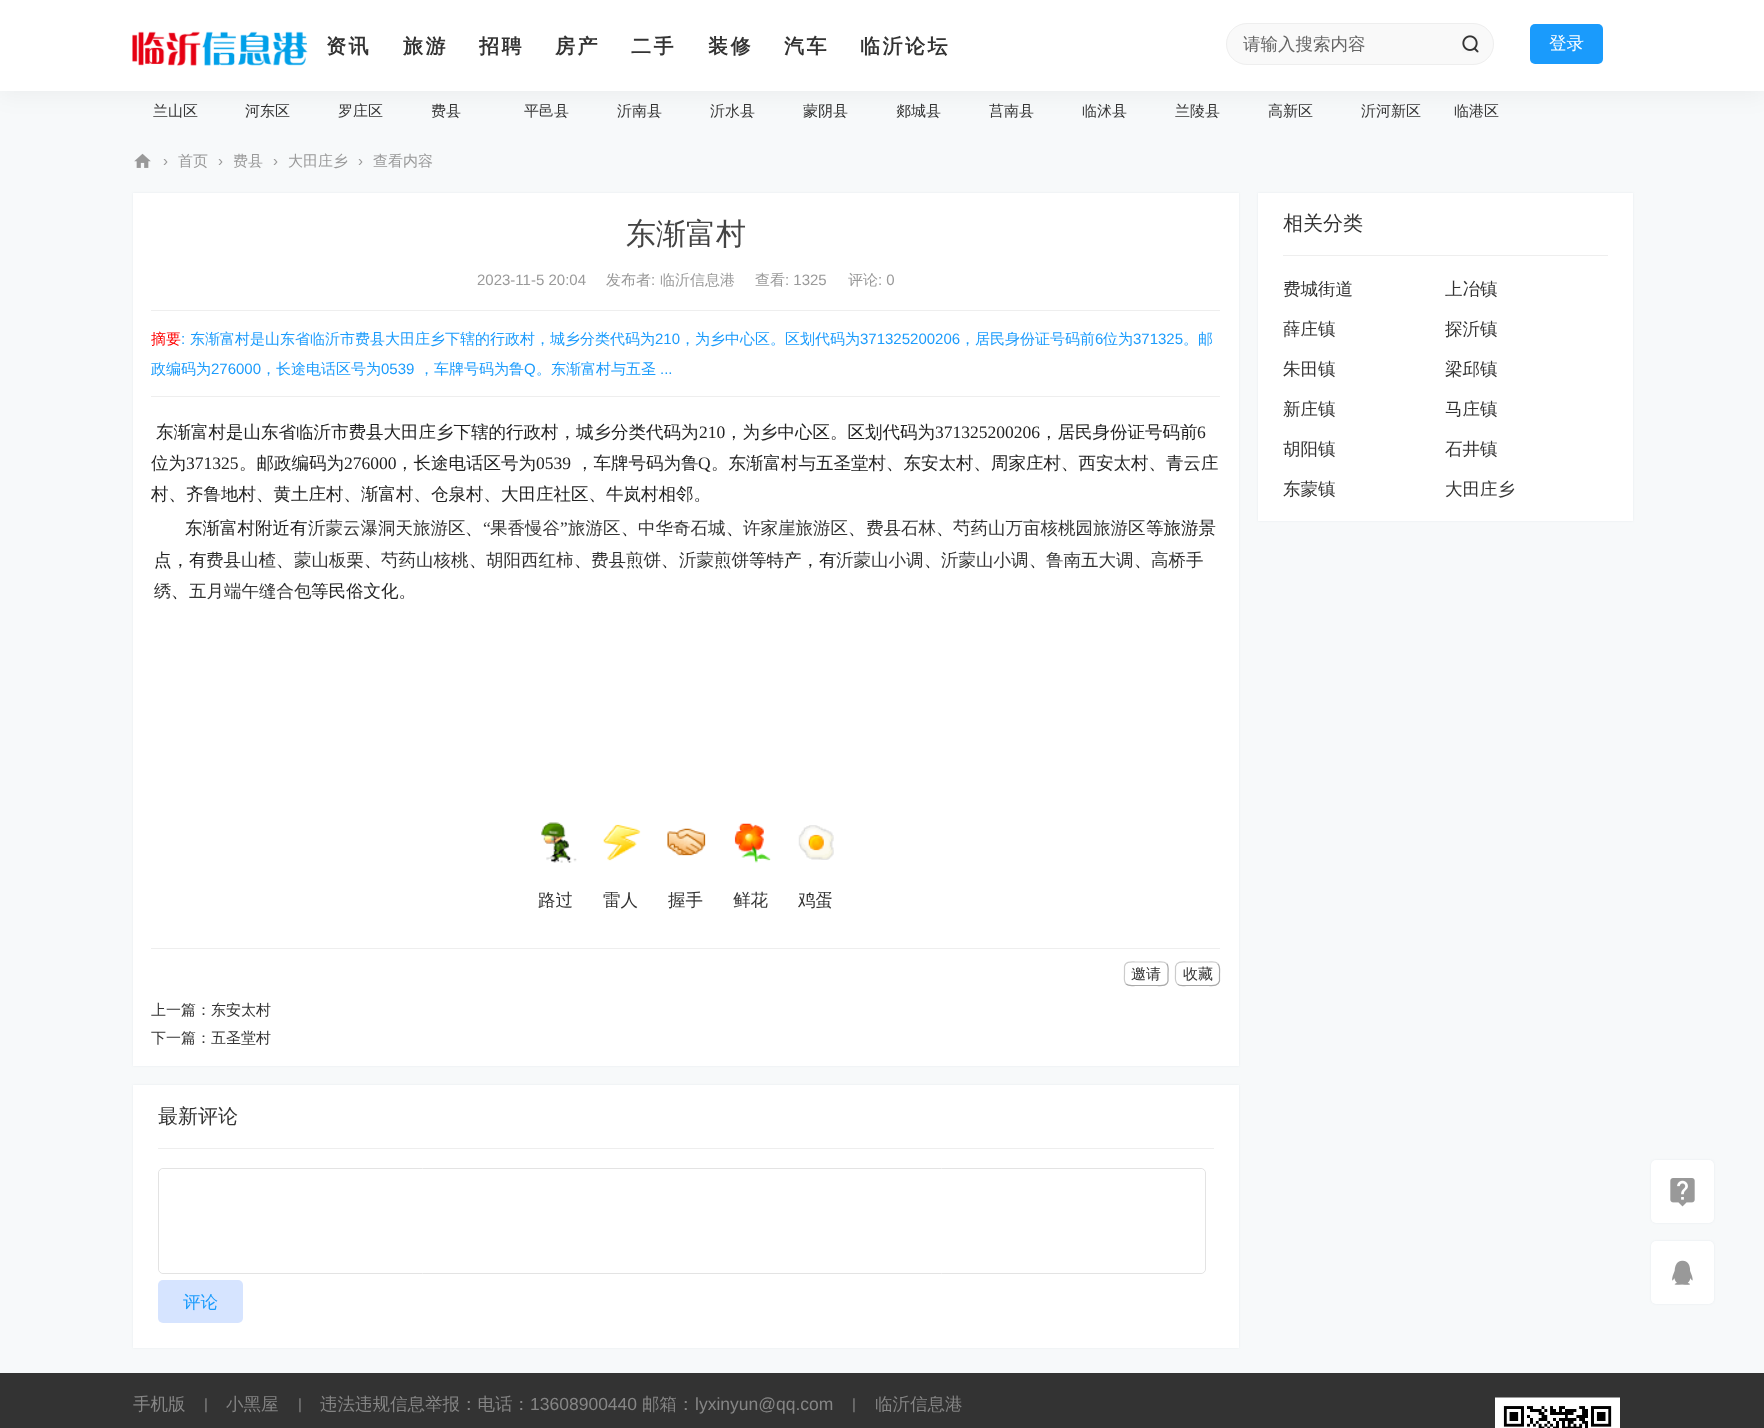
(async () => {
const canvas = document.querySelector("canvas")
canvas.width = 1764
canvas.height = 1428
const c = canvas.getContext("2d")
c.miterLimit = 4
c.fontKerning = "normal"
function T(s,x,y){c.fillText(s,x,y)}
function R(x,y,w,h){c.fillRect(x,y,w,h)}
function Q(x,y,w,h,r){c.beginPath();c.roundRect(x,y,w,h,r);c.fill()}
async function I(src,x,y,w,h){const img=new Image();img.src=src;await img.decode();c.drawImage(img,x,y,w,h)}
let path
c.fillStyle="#f7f9fa"
R(0,0,1764,1428)
c.fillStyle="#0000000d"
c.filter="blur(12.5px)"
c.beginPath()
c.rect(0,3,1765,91)
c.fill()
c.filter="none"
c.fillStyle="#fff"
R(0,0,1764,91)
await I("1.png",132,31,176,35)
c.letterSpacing="2.5px"
c.font="bold 20px WenQuanYi Zen Hei"
c.fillStyle="#333"
T("资讯",326,53)
T("旅游",403,53)
T("招聘",479,53)
T("房产",555,53)
T("二手",631,53)
T("装修",708,53)
T("汽车",784,53)
T("临沂论坛",860,53)
c.fillStyle="#f9f9f9"
c.beginPath()
c.roundRect(1226.5,23.5,267,41,20.5)
c.fill()
c.strokeStyle="#eee"
c.stroke()
c.letterSpacing="0px"
c.font="500 17.5px WenQuanYi Zen Hei"
c.fillStyle="#666"
T("请输入搜索内容",1243,50)
await I("2.png",1462,35,17,18)
c.fillStyle="#1a9bfc"
Q(1530,24,73,40,5)
c.fillStyle="#fff"
T("登录",1549,49)
c.font="500 15px WenQuanYi Zen Hei"
c.fillStyle="#333"
T("兰山区",153,116)
T("河东区",245,116)
T("罗庄区",338,116)
T("费县",431,116)
T("平邑县",524,116)
T("沂南县",617,116)
T("沂水县",710,116)
T("蒙阴县",803,116)
T("郯城县",896,116)
T("莒南县",989,116)
T("临沭县",1082,116)
T("兰陵县",1175,116)
T("高新区",1268,116)
T("沂河新区",1361,116)
T("临港区",1454,116)
await I("3.png",134,153,17,15)
c.font="15px Liberation Sans"
c.fillStyle="#999"
T("›",163,166)
c.font="500 15px WenQuanYi Zen Hei"
T("首页",178,166)
c.font="15px Liberation Sans"
T("›",218,166)
c.font="500 15px WenQuanYi Zen Hei"
T("费县",233,166)
c.font="15px Liberation Sans"
T("›",273,166)
c.font="500 15px WenQuanYi Zen Hei"
T("大田庄乡",288,166)
c.font="15px Liberation Sans"
T("›",358,166)
c.font="500 15px WenQuanYi Zen Hei"
T("查看内容",373,166)
c.fillStyle="#58768a1a"
c.filter="blur(1px)"
c.beginPath()
c.rect(133,193,1106,873)
c.fill()
c.filter="none"
c.fillStyle="#fff"
R(133,193,1106,873)
c.fillStyle="#eee"
R(151,310,1069,1)
c.font="500 30px WenQuanYi Zen Hei"
c.fillStyle="#444"
T("东渐富村",626,244)
c.font="15px Liberation Sans"
c.fillStyle="#999"
T("2023-11-5 20:04",477,285)
c.font="500 15px WenQuanYi Zen Hei"
T("发布者",606,285)
c.font="15px Liberation Sans"
T(":",651,285)
c.font="500 15px WenQuanYi Zen Hei"
T("临沂信息港",660,285)
T("查看",755,285)
c.font="15px Liberation Sans"
T(": 1325",785,285)
c.font="500 15px WenQuanYi Zen Hei"
T("评论",848,285)
c.font="15px Liberation Sans"
T(": 0",878,285)
c.fillStyle="#eee"
R(151,396,1069,1)
c.font="500 15px WenQuanYi Zen Hei"
c.fillStyle="#f00"
T("摘要",151,344)
c.font="15px Liberation Sans"
c.fillStyle="#1a9bfc"
T(":",181,344)
c.font="500 15px WenQuanYi Zen Hei"
T("东渐富村是山东省临沂市费县大田庄乡下辖的行政村，城乡分类代码为",190,344)
c.font="15px Liberation Sans"
T("210",655,344)
c.font="500 15px WenQuanYi Zen Hei"
T("，为乡中心区。区划代码为",680,344)
c.font="15px Liberation Sans"
T("371325200206",860,344)
c.font="500 15px WenQuanYi Zen Hei"
T("，居民身份证号码前",960,344)
c.font="15px Liberation Sans"
T("6",1095,344)
c.font="500 15px WenQuanYi Zen Hei"
T("位为",1103,344)
c.font="15px Liberation Sans"
T("371325",1133,344)
c.font="500 15px WenQuanYi Zen Hei"
T("。邮",1183,344)
T("政编码为",151,374)
c.font="15px Liberation Sans"
T("276000",211,374)
c.font="500 15px WenQuanYi Zen Hei"
T("，长途电话区号为",261,374)
c.font="15px Liberation Sans"
T("0539",381,374)
c.font="500 15px WenQuanYi Zen Hei"
T("，车牌号码为鲁",419,374)
c.font="15px Liberation Sans"
T("Q",524,374)
c.font="500 15px WenQuanYi Zen Hei"
T("。东渐富村与五圣",536,374)
c.font="15px Liberation Sans"
T("...",660,374)
c.font="500 17.5px WenQuanYi Zen Hei"
c.fillStyle="#222"
T("东渐富村是山东省临沂市费县大田庄乡下辖的行政村，城乡分类代码为",156,438)
c.font="17.5px Liberation Serif"
T("210",699,438)
c.font="500 17.5px WenQuanYi Zen Hei"
T("，为乡中心区。区划代码为",725,438)
c.font="17.5px Liberation Serif"
T("371325200206",935,438)
c.font="500 17.5px WenQuanYi Zen Hei"
T("，居民身份证号码前",1040,438)
c.font="17.5px Liberation Serif"
T("6",1197,438)
c.font="500 17.5px WenQuanYi Zen Hei"
T("位为",151,469)
c.font="17.5px Liberation Serif"
T("371325",186,469)
c.font="500 17.5px WenQuanYi Zen Hei"
T("。邮政编码为",239,469)
c.font="17.5px Liberation Serif"
T("276000",344,469)
c.font="500 17.5px WenQuanYi Zen Hei"
T("，长途电话区号为",396,469)
c.font="17.5px Liberation Serif"
T("0539",536,469)
c.font="500 17.5px WenQuanYi Zen Hei"
T("，车牌号码为鲁",576,469)
c.font="17.5px Liberation Serif"
T("Q",698,469)
c.font="500 17.5px WenQuanYi Zen Hei"
T("。东渐富村与五圣堂村、东安太村、周家庄村、西安太村、青云庄",711,469)
T("村、齐鲁地村、黄土庄村、渐富村、仓泉村、大田庄社区、牛岚村相邻。",151,500)
T("东渐富村附近有",185,534)
c.fillStyle="#333"
T("沂蒙云瀑洞天旅游区",308,534)
c.font="17.5px Liberation Serif"
T("“",483,534)
c.font="500 17.5px WenQuanYi Zen Hei"
T("果香慢谷",490,534)
c.font="17.5px Liberation Serif"
T("”",560,534)
c.font="500 17.5px WenQuanYi Zen Hei"
T("旅游区",568,534)
T("中华奇石城",638,534)
T("许家崖旅游区",743,534)
T("费县石林",866,534)
T("芍药山万亩核桃园旅游区",953,534)
c.fillStyle="#222"
T("等旅游景",1146,534)
T("、",465,534)
T("、",621,534)
T("、",726,534)
T("、",848,534)
T("、",936,534)
T("点，有",154,566)
c.fillStyle="#333"
T("费县山楂",206,566)
c.fillStyle="#222"
T("、",276,566)
c.fillStyle="#333"
T("蒙山板栗",294,566)
c.fillStyle="#222"
T("、",364,566)
c.fillStyle="#333"
T("芍药山核桃",381,566)
c.fillStyle="#222"
T("、",469,566)
c.fillStyle="#333"
T("胡阳西红柿",486,566)
c.fillStyle="#222"
T("、",574,566)
c.fillStyle="#333"
T("费县煎饼",591,566)
c.fillStyle="#222"
T("、",661,566)
c.fillStyle="#333"
T("沂蒙煎饼",679,566)
c.fillStyle="#222"
T("等特产，有",749,566)
c.fillStyle="#333"
T("沂蒙山小调",836,566)
c.fillStyle="#222"
T("、",924,566)
c.fillStyle="#333"
T("沂蒙山小调",941,566)
c.fillStyle="#222"
T("、",1029,566)
c.fillStyle="#333"
T("鲁南五大调",1046,566)
c.fillStyle="#222"
T("、",1134,566)
c.fillStyle="#333"
T("高桥手",1151,566)
T("绣",154,597)
c.fillStyle="#222"
T("、",171,597)
c.fillStyle="#333"
T("五月端午缝合包",189,597)
c.fillStyle="#222"
T("等民俗文化。",311,597)
await I("4.png",541,822,36,41)
c.fillStyle="#333"
T("路过",538,906)
await I("5.png",603,824,38,37)
T("雷人",603,906)
await I("6.png",667,828,39,28)
T("握手",668,906)
await I("7.png",734,823,37,40)
T("鲜花",733,906)
await I("8.png",798,825,36,35)
T("鸡蛋",798,906)
c.fillStyle="#eee"
R(151,948,1069,1)
path = new Path2D("M1166.5 963.5c2.5 2.5 1.5 7 1.5 10.5v7c-1 5.5-7 4.5-11 4.5h-21.5c-3 0-7 1-9.5-1.5")
c.strokeStyle="#a9a9a9"
c.lineWidth=1.2
c.stroke(path)
path = new Path2D("M1126 984c-2.5-2.5-1.5-7-1.5-10v-7.5c1-5.5 7-4.5 11-4.5h21.5c3 0 7-1 9.5 1.5")
c.strokeStyle="#ccc"
c.stroke(path)
c.font="500 15px WenQuanYi Zen Hei"
c.fillStyle="#333"
T("邀请",1131,979)
path = new Path2D("M1217.5 963.5c3 2.5 2 7 2 10.5v7c-1.5 5.5-7 4.5-11 4.5h-22c-3 0-7 1-9-1.5")
c.strokeStyle="#a9a9a9"
c.stroke(path)
path = new Path2D("M1177.5 984c-3-2.5-2-7-2-10v-7.5c1.5-5.5 7-4.5 11-4.5h22c3 0 7-1 9 1.5")
c.strokeStyle="#ccc"
c.stroke(path)
T("收藏",1183,979)
T("上一篇：东安太村",151,1015)
T("下一篇：五圣堂村",151,1043)
c.fillStyle="#58768a1a"
c.filter="blur(1px)"
c.beginPath()
c.rect(133,1085,1106,263)
c.fill()
c.filter="none"
c.fillStyle="#fff"
R(133,1085,1106,263)
c.fillStyle="#eee"
R(158,1148,1056,1)
c.font="500 20px WenQuanYi Zen Hei"
c.fillStyle="#333"
T("最新评论",158,1123)
c.beginPath()
c.roundRect(158.5,1168.5,1047,105,4.5)
c.strokeStyle="#e3e3e3"
c.lineWidth=1
c.stroke()
c.fillStyle="#fff"
Q(159,1169,1046,104,5)
c.fillStyle="#d6e4ff"
Q(158,1280,85,43,5)
c.font="500 17.5px WenQuanYi Zen Hei"
c.fillStyle="#1a9bfc"
T("评论",183,1308)
c.fillStyle="#58768a1a"
c.filter="blur(1px)"
c.beginPath()
c.rect(1258,193,375,328)
c.fill()
c.filter="none"
c.fillStyle="#fff"
R(1258,193,375,328)
c.fillStyle="#eee"
R(1283,255,325,1)
c.font="500 20px WenQuanYi Zen Hei"
c.fillStyle="#333"
T("相关分类",1283,230)
c.font="500 17.5px WenQuanYi Zen Hei"
T("费城街道",1283,295)
T("上冶镇",1445,295)
T("薛庄镇",1283,335)
T("探沂镇",1445,335)
T("朱田镇",1283,375)
T("梁邱镇",1445,375)
T("新庄镇",1283,415)
T("马庄镇",1445,415)
T("胡阳镇",1283,455)
T("石井镇",1445,455)
T("东蒙镇",1283,495)
T("大田庄乡",1445,495)
c.fillStyle="#58768a1a"
c.filter="blur(1px)"
c.beginPath()
c.roundRect(1651,1160,63,63,5)
c.fill()
c.filter="none"
c.fillStyle="#fff"
Q(1651,1160,63,63,5)
await I("9.png",1670,1178,25,29)
c.fillStyle="#58768a1a"
c.filter="blur(1px)"
c.beginPath()
c.roundRect(1651,1241,63,63,5)
c.fill()
c.filter="none"
c.fillStyle="#fff"
Q(1651,1241,63,63,5)
await I("10.png",1672,1260,21,25)
c.fillStyle="#333"
R(0,1373,1764,55)
c.fillStyle="#858585"
T("手机版",133,1410)
c.font="15px Liberation Sans"
T("|",204,1409)
c.font="500 17.5px WenQuanYi Zen Hei"
T("小黑屋",226,1410)
c.font="15px Liberation Sans"
T("|",298,1409)
c.font="500 17.5px WenQuanYi Zen Hei"
T("违法违规信息举报：电话：",320,1410)
c.font="17.5px Liberation Sans"
T("13608900440",530,1410)
c.font="500 17.5px WenQuanYi Zen Hei"
T("邮箱：",642,1410)
c.font="17.5px Liberation Sans"
T("lyxinyun@qq.com",695,1410)
c.font="15px Liberation Sans"
T("|",852,1409)
c.font="500 17.5px WenQuanYi Zen Hei"
T("临沂信息港",875,1410)
await I("11.png",1495,1397,125,31)
})()
